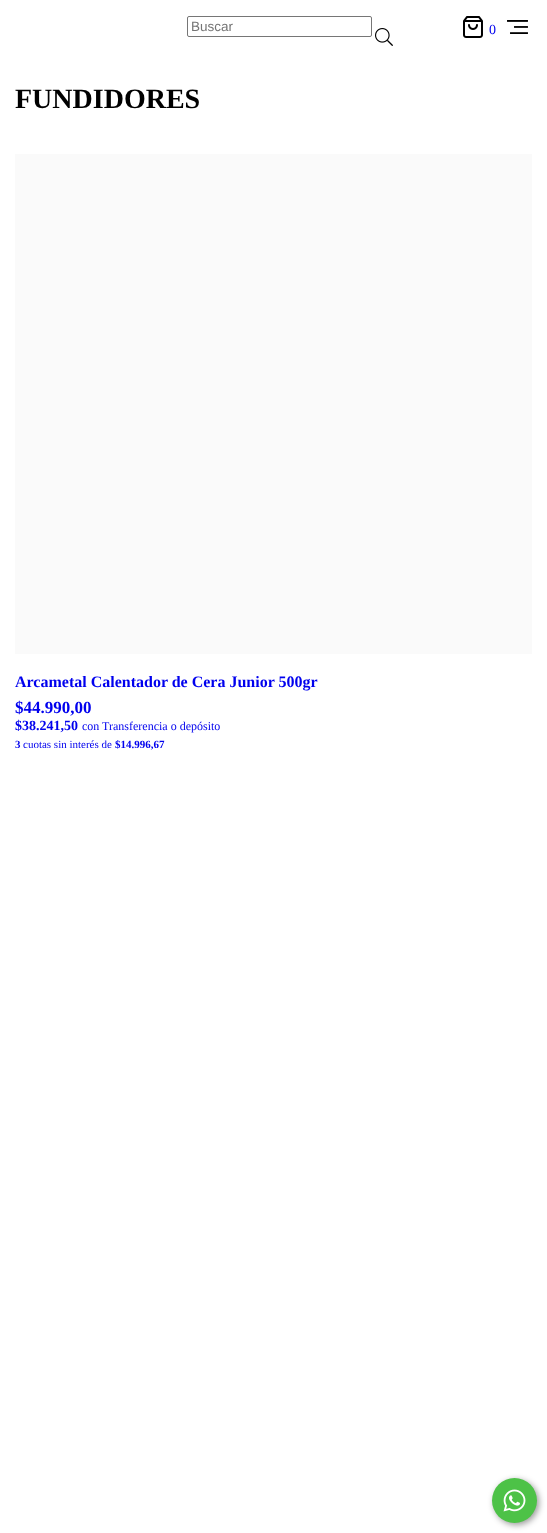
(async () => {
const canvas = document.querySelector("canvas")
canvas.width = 547
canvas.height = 1533
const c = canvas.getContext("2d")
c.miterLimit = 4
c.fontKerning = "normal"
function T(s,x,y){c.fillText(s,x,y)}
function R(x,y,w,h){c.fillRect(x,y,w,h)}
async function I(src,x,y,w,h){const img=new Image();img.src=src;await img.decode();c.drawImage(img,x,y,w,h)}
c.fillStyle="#fff"
R(0,0,547,1533)
c.beginPath()
c.roundRect(187.5,16.5,184,20,1.5)
c.strokeStyle="#767676"
c.stroke()
c.font="13.5px Liberation Sans"
c.fillStyle="#757575"
T("Buscar",191,31)
await I("1.png",375,28,18,18)
await I("2.png",463,16,20,22)
c.font="14px Liberation Serif"
c.fillStyle="#00e"
T("0",489,34)
await I("3.png",507,20,21,14)
c.font="bold 28px Liberation Serif"
c.fillStyle="#000"
T("FUNDIDORES",15,108)
c.fillStyle="#fafafa"
R(15,154,517,500)
c.font="bold 16px Liberation Serif"
c.fillStyle="#00e"
T("Arcametal Calentador de Cera Junior 500gr",15,687)
c.font="bold 17px Liberation Serif"
T("$44.990,00",15,713)
c.font="bold 14px Liberation Serif"
T("$38.241,50",15,730)
c.font="12px Liberation Serif"
T("con Transferencia o depósito",82,730)
c.font="bold 11px Liberation Serif"
T("3",15,748)
c.font="11px Liberation Serif"
T("cuotas sin interés de",23,748)
c.font="bold 11px Liberation Serif"
T("$14.996,67",115,748)
c.fillStyle="#00000066"
c.filter="blur(3px)"
c.beginPath()
c.roundRect(494,1480,45,45,22.5)
c.fill()
c.filter="none"
c.fillStyle="#4dc247"
c.beginPath()
c.arc(514.5,1500.5,22.5,0,7)
c.fill()
await I("4.png",503,1489,23,23)
})()
